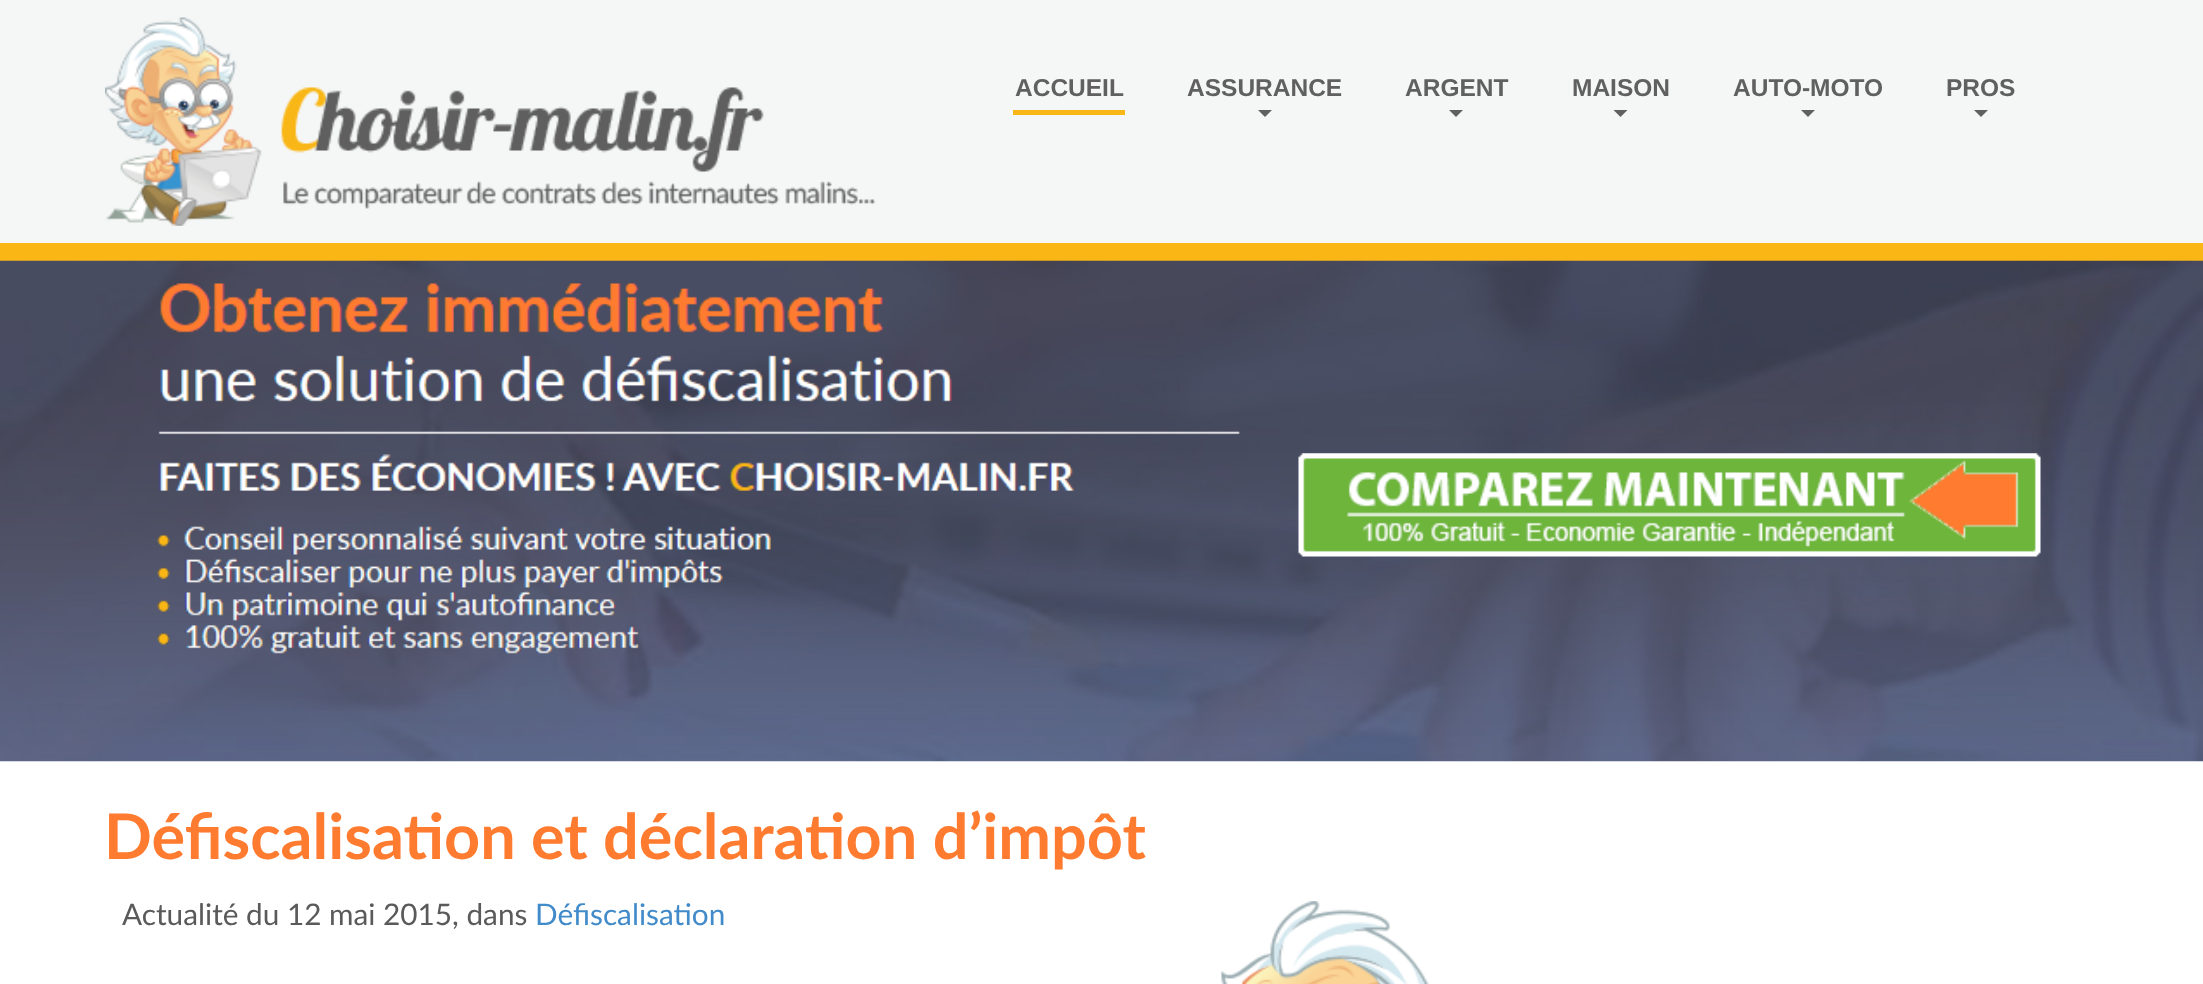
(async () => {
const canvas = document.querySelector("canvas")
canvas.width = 2203
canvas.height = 984
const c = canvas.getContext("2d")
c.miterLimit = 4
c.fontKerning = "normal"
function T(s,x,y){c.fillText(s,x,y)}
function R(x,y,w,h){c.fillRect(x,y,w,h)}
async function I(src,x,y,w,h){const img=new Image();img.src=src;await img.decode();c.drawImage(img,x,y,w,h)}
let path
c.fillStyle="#fff"
R(0,0,2203,984)
c.fillStyle="#f5f6f6"
R(0,0,2203,243)
await I("1.png",105,17,770,209)
c.fillStyle="#f9b717"
R(1013,110,112,5)
c.font="bold 24.5px Liberation Sans"
c.fillStyle="#606061"
T("ACCUEIL",1015,96)
T("ASSURANCE",1187,96)
path = new Path2D("M1258 110h14l-7 7z")
c.fill(path)
T("ARGENT",1405,96)
path = new Path2D("M1449 110h14l-7 7z")
c.fill(path)
T("MAISON",1572,96)
path = new Path2D("M1613.5 110h14l-7 7z")
c.fill(path)
T("AUTO-MOTO",1733,96)
path = new Path2D("M1801 110h14l-7 7z")
c.fill(path)
T("PROS",1946,96)
path = new Path2D("M1974 110h14l-7 7z")
c.fill(path)
c.fillStyle="#fab614"
R(0,243,2203,18)
await I("2.png",0,260,2203,502)
await I("3.png",157,283,1083,371)
await I("4.png",1298,453,743,104)
c.font="bold 63px Lato"
c.fillStyle="#ff7b2f"
T("Défiscalisation et déclaration d’impôt",104,859)
c.font="29.75px Lato"
c.fillStyle="#5a5a5b"
T("Actualité du 12 mai 2015, dans",122,925)
c.fillStyle="#428bca"
T("Défiscalisation",535,925)
await I("5.png",1220,901,209,83)
})()
